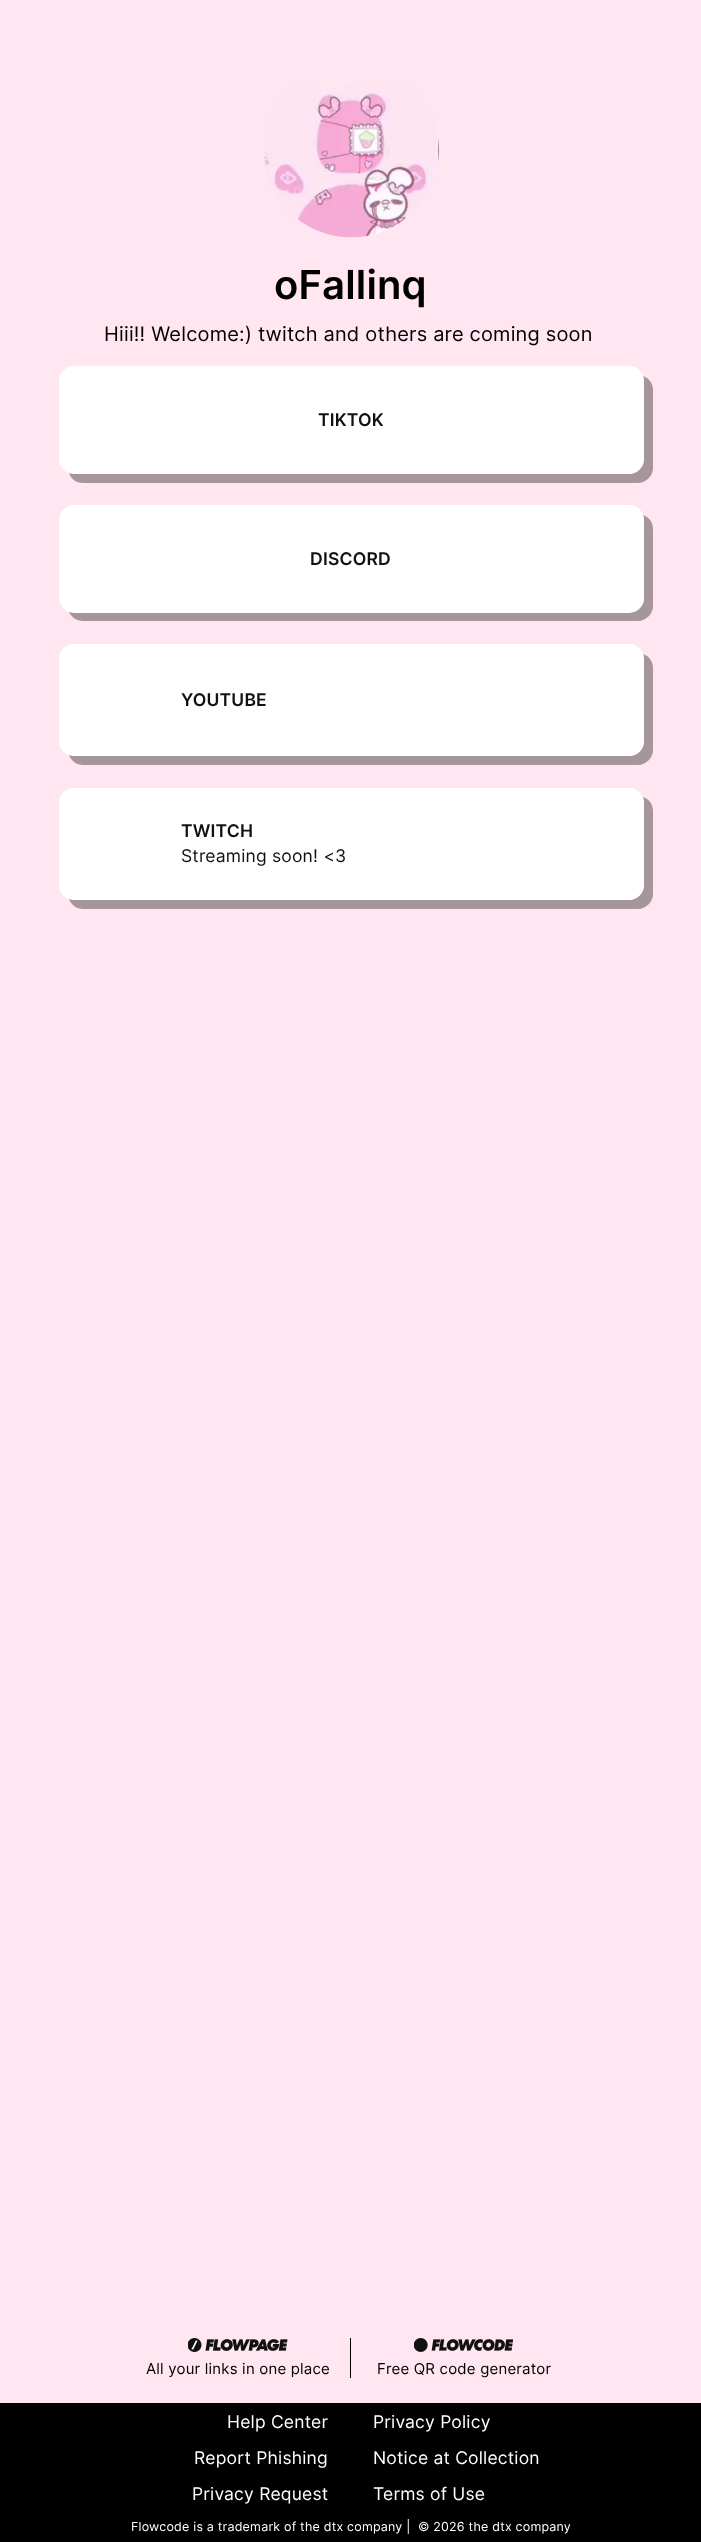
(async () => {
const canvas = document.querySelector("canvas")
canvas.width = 701
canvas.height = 2542
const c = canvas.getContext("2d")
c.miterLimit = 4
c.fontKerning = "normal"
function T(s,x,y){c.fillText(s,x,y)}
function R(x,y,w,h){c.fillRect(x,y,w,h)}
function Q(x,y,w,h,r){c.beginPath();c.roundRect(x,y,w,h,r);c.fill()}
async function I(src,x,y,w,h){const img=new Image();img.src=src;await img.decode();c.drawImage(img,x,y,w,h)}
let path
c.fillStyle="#ffe6f0"
R(0,0,701,2542)
await I("1.png",264,85,175,153)
c.letterSpacing="0.2px"
c.font="600 40px Inter"
c.fillStyle="#000"
T("oFallinq",274,299)
c.font="20px Inter"
T("Hiii!! Welcome:) twitch and others are coming soon",104,341)
c.fillStyle="#a6969c"
path = new Path2D("M69 473c2 6 7 10 14 10h555c8 0 15-7 15-15v-78c0-7-4-12-10-14c0 1 1 3 1 5v78c0 8-7 15-15 15h-555z")
c.fill(path)
c.fillStyle="#fff"
Q(59,366,585,108,15)
c.font="600 17.5px Inter"
c.fillStyle="#111"
T("TIKTOK",318,426)
c.fillStyle="#a6969c"
path = new Path2D("M69 612c2 5 8 9 14 9h555c8 0 15-7 15-15v-77c0-7-4-12-10-14l1 5v78c0 8-7 14-15 14h-555z")
c.fill(path)
c.fillStyle="#fff"
Q(59,505,585,108,15)
c.fillStyle="#111"
T("DISCORD",310,565)
c.fillStyle="#a6969c"
path = new Path2D("M69 755c2 6 8 10 14 10h555c8 0 15-7 15-15v-82c0-7-4-12-10-14l1 5v82c0 9-7 15-15 15h-555z")
c.fill(path)
c.fillStyle="#fff"
Q(59,644,585,112,15)
c.fillStyle="#111"
T("YOUTUBE",181,706)
c.fillStyle="#a6969c"
path = new Path2D("M69 899c2 6 8 10 14 10h555c8 0 15-7 15-15v-83c0-7-4-12-10-14c0 1 1 3 1 5v83c0 8-7 15-15 15h-555z")
c.fill(path)
c.fillStyle="#fff"
Q(59,788,585,112,15)
c.fillStyle="#111"
T("TWITCH",181,837)
c.font="17.5px Inter"
T("Streaming soon! <3",181,862)
await I("2.png",188,2338,100,14)
c.font="15px Inter"
c.fillStyle="#000"
T("All your links in one place",146,2374)
R(350,2338,1,40)
await I("3.png",414,2338,99,14)
T("Free QR code generator",377,2374)
R(0,2403,701,139)
c.font="17.5px Inter"
c.fillStyle="#fff"
T("Help Center",227,2428)
T("Report Phishing",194,2464)
T("Privacy Request",192,2500)
T("Privacy Policy",373,2428)
T("Notice at Collection",373,2464)
T("Terms of Use",373,2500)
c.font="12.5px Inter"
T("Flowcode is a trademark of the dtx company |  © 2026 the dtx company",131,2531)
})()
